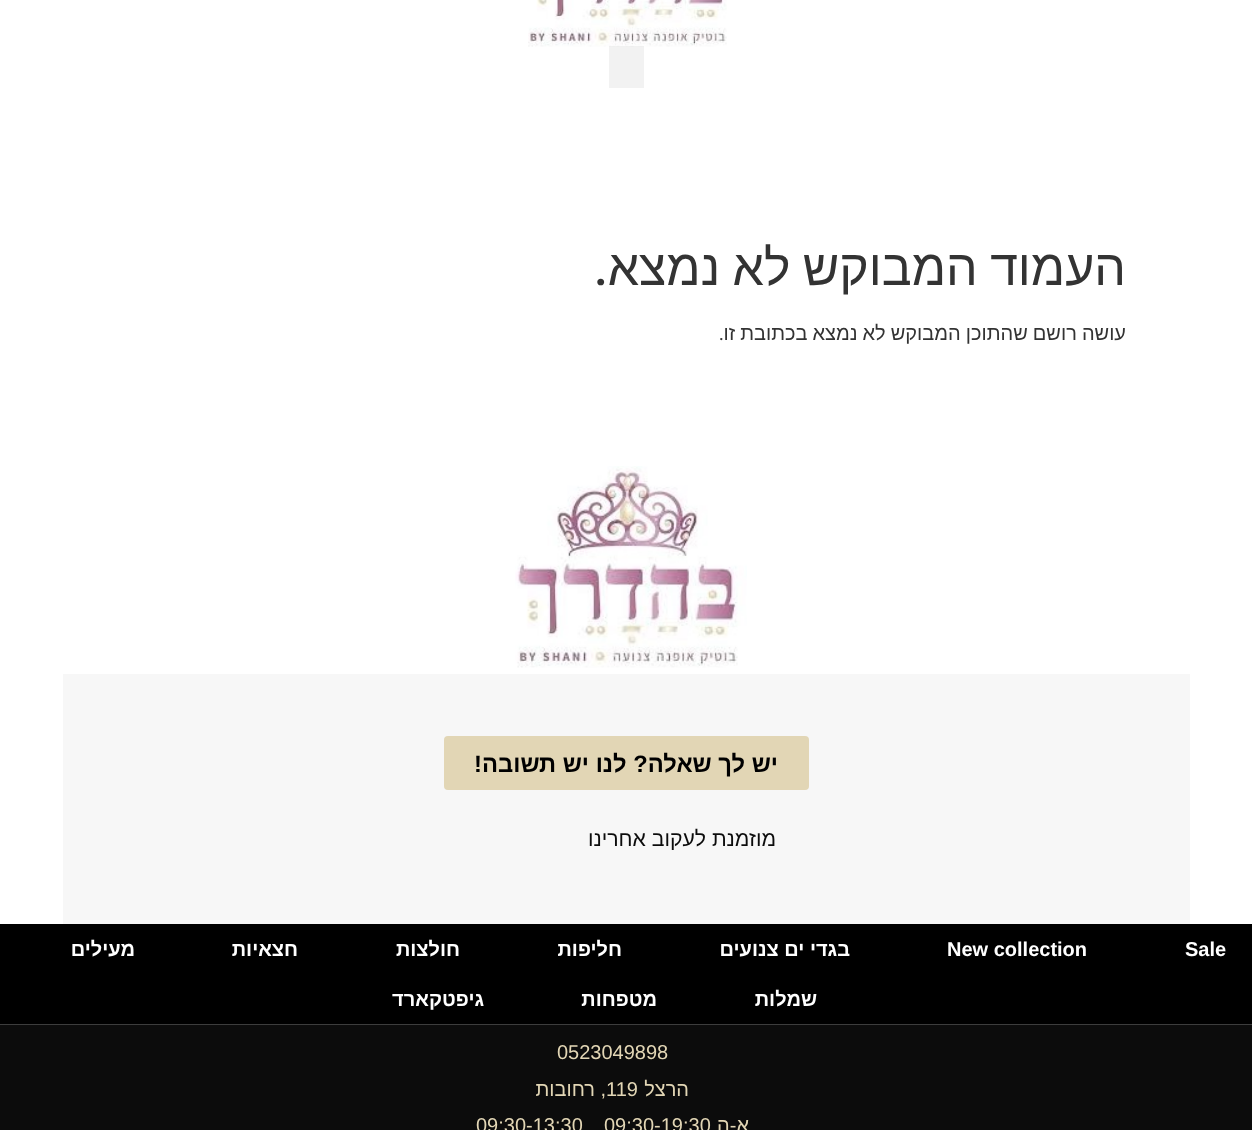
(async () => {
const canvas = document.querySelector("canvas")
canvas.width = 1252
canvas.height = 1130
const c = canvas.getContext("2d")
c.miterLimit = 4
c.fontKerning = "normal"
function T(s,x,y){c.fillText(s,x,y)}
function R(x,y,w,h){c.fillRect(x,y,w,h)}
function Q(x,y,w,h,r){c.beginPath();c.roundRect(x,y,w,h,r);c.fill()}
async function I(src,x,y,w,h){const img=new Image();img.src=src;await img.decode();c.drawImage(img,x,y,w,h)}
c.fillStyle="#fff"
R(0,0,1252,1130)
await I("1.png",528,0,199,47)
c.fillStyle="#0000000d"
R(609,46,35,42)
c.wordSpacing="-1.5px"
c.direction="rtl"
c.font="50px Liberation Sans"
c.fillStyle="#333"
T("העמוד המבוקש לא נמצא",1126,285)
c.wordSpacing="0px"
c.font="500 50px Roboto"
T(".",608,285)
c.wordSpacing="-0.5px"
c.font="20px Liberation Sans"
T("עושה רושם שהתוכן המבוקש לא נמצא בכתובת זו",1126,340)
c.wordSpacing="0px"
c.font="20px Roboto"
T(".",724,340)
await I("2.png",515,466,232,202)
c.fillStyle="#f7f7f7"
R(63,674,1127,250)
c.fillStyle="#e2d6b5"
Q(444,736,365,54,4)
c.font="bold 23.75px Liberation Sans"
c.fillStyle="#000"
T("יש לך שאלה? לנו יש תשובה!",778,772)
c.font="21.25px Liberation Sans"
c.fillStyle="#0c0c0c"
T("מוזמנת לעקוב אחרינו",776,846)
c.fillStyle="#000"
R(0,924,1252,100)
c.direction="ltr"
c.font="bold 20px Liberation Sans"
c.fillStyle="#fff"
T("Sale",1185,956)
T("New collection",947,956)
c.direction="rtl"
T("בגדי ים צנועים",850,956)
T("חליפות",622,956)
T("חולצות",460,956)
T("חצאיות",298,956)
T("מעילים",135,956)
T("שמלות",817,1006)
T("מטפחות",657,1006)
T("גיפטקארד",484,1006)
c.fillStyle="#0c0c0c"
R(0,1025,1252,105)
c.fillStyle="#3d3d3d"
R(0,1024,1252,1)
c.direction="ltr"
c.font="20px Liberation Sans"
c.fillStyle="#e2d6b5"
T("0523049898",557,1059)
c.direction="rtl"
T("הרצל",689,1096)
c.direction="ltr"
T("119",606,1096)
c.direction="rtl"
T(", רחובות",606,1096)
T("א-ה",749,1132)
c.direction="ltr"
T("09:30-19:30",604,1132)
T("09:30-13:30",476,1132)
})()
